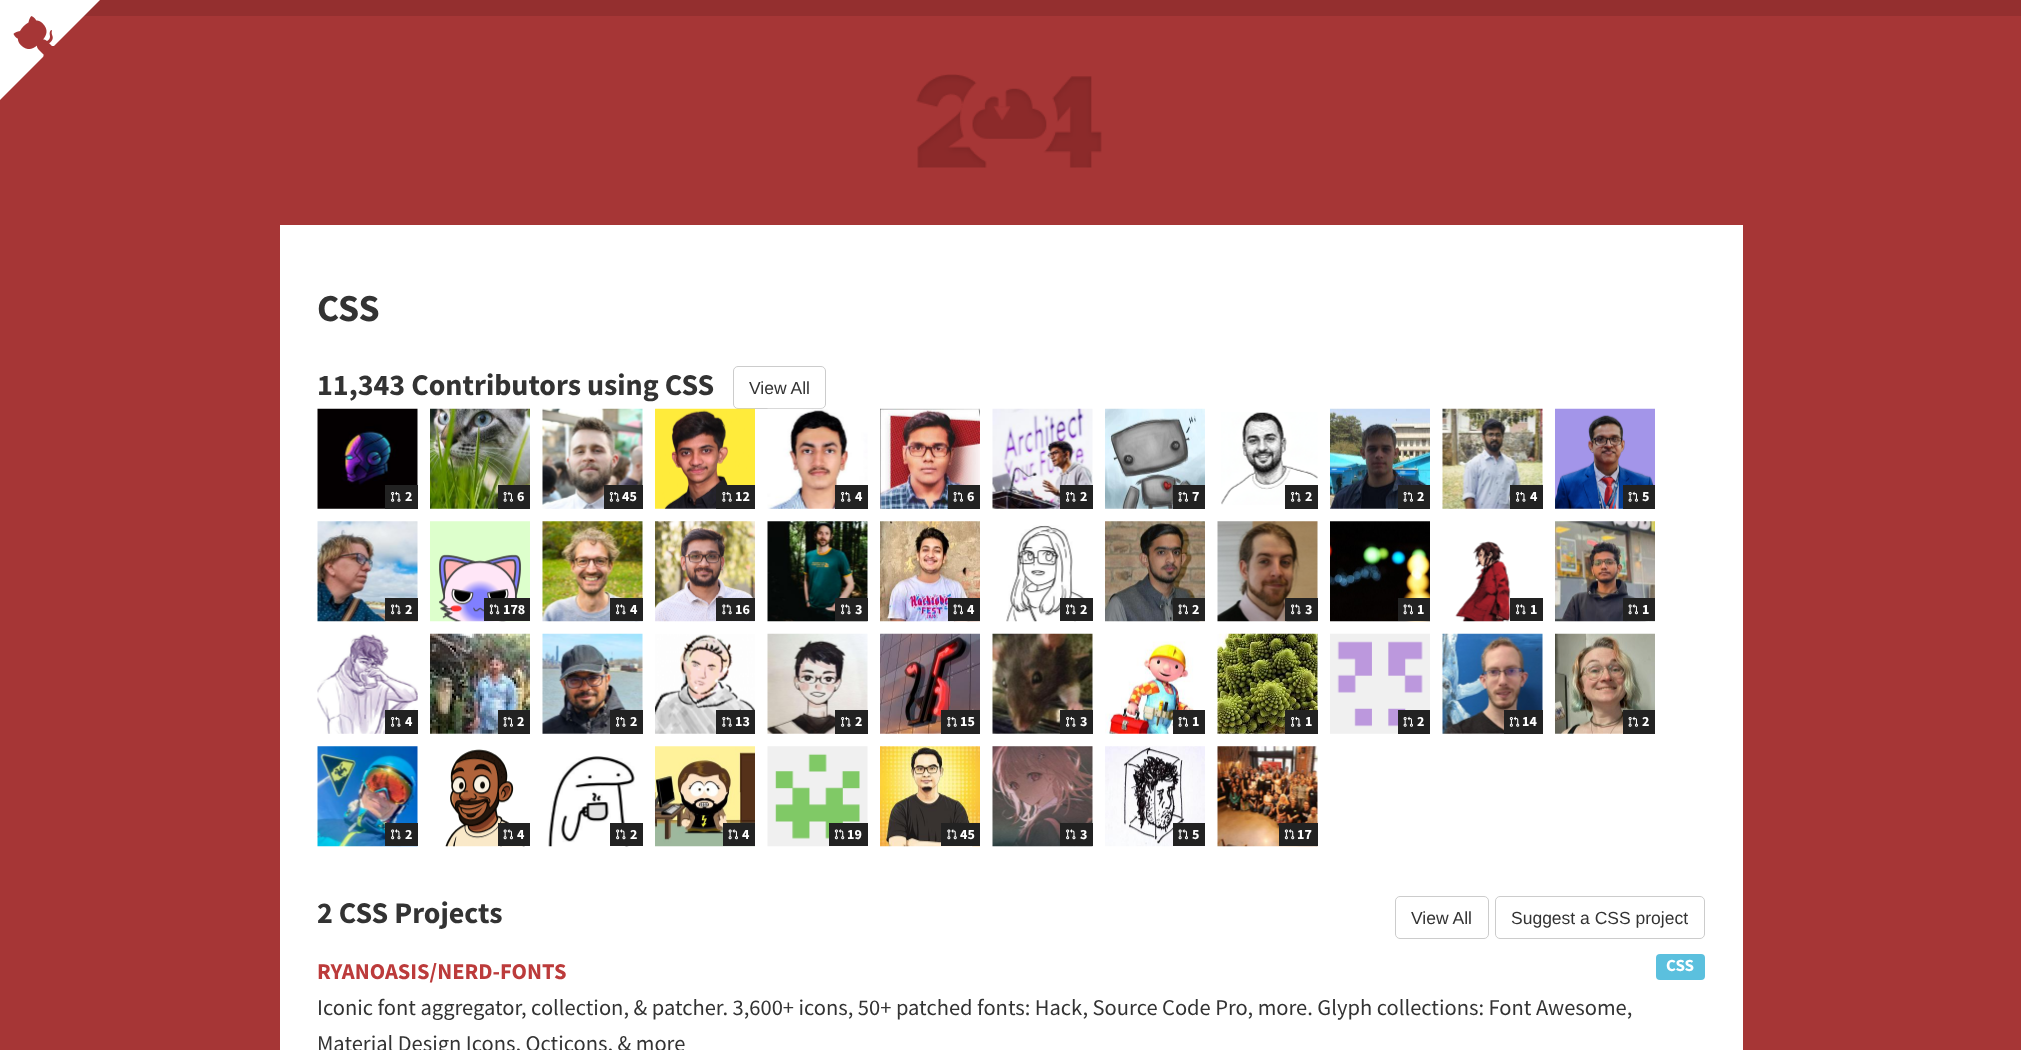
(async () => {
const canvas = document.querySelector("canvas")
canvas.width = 2021
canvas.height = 1050
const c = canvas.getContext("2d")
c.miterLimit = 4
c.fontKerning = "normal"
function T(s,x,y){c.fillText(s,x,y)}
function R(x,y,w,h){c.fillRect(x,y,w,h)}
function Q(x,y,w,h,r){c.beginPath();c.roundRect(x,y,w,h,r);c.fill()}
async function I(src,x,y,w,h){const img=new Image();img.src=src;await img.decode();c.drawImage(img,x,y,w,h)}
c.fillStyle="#a63636"
R(0,0,2021,1050)
c.fillStyle="#942f2f"
R(84,0,1937,16)
await I("1.png",0,0,100,100)
await I("2.png",916,74,186,94)
c.fillStyle="#fff"
R(280,225,1463,825)
c.font="bold 38px Source Sans Pro"
c.fillStyle="#333"
T("CSS",317,321)
c.font="bold 30px Source Sans Pro"
T("11,343 Contributors using CSS",317,395)
c.beginPath()
c.roundRect(733.5,366.5,92,42,4.5)
c.strokeStyle="#ccc"
c.stroke()
c.font="17.5px Liberation Sans"
T("View All",749,394)
await I("3.png",317,408,101,101)
c.fillStyle="#222"
R(385,485,33,24)
await I("4.png",391,491,10,11)
c.font="bold 14px Source Sans Pro"
c.fillStyle="#fff"
T("2",405,501)
await I("5.png",430,408,100,101)
c.fillStyle="#222"
R(498,485,32,24)
await I("6.png",503,491,10,11)
c.fillStyle="#fff"
T("6",517,501)
await I("7.png",542,408,101,101)
c.fillStyle="#222"
R(604,485,39,24)
await I("8.png",609,491,11,11)
c.fillStyle="#fff"
T("45",622,501)
await I("9.png",655,408,100,101)
c.fillStyle="#222"
R(716,485,39,24)
await I("10.png",722,491,10,11)
c.fillStyle="#fff"
T("12",735,501)
await I("11.png",767,408,101,101)
c.fillStyle="#222"
R(835,485,33,24)
await I("4.png",841,491,10,11)
c.fillStyle="#fff"
T("4",855,501)
await I("12.png",880,408,100,101)
c.fillStyle="#222"
R(948,485,32,24)
await I("6.png",953,491,10,11)
c.fillStyle="#fff"
T("6",967,501)
await I("13.png",992,408,101,101)
c.fillStyle="#222"
R(1060,485,33,24)
await I("4.png",1066,491,10,11)
c.fillStyle="#fff"
T("2",1080,501)
await I("14.png",1105,408,100,101)
c.fillStyle="#222"
R(1173,485,32,24)
await I("6.png",1178,491,10,11)
c.fillStyle="#fff"
T("7",1192,501)
await I("15.png",1221,412,97,93)
c.fillStyle="#222"
R(1285,485,33,24)
await I("4.png",1291,491,10,11)
c.fillStyle="#fff"
T("2",1305,501)
await I("16.png",1330,408,100,101)
c.fillStyle="#222"
R(1398,485,32,24)
await I("6.png",1403,491,10,11)
c.fillStyle="#fff"
T("2",1417,501)
await I("17.png",1442,408,101,101)
c.fillStyle="#222"
R(1510,485,33,24)
await I("4.png",1516,491,10,11)
c.fillStyle="#fff"
T("4",1530,501)
await I("18.png",1555,408,100,101)
c.fillStyle="#222"
R(1623,485,32,24)
await I("6.png",1628,491,10,11)
c.fillStyle="#fff"
T("5",1642,501)
await I("19.png",317,521,101,101)
c.fillStyle="#222"
R(385,598,33,23)
await I("20.png",391,604,10,11)
c.fillStyle="#fff"
T("2",405,614)
await I("21.png",430,521,100,101)
c.fillStyle="#222"
R(484,598,46,23)
await I("22.png",489,604,11,11)
c.fillStyle="#fff"
T("178",503,614)
await I("23.png",542,521,101,101)
c.fillStyle="#222"
R(610,598,33,23)
await I("20.png",616,604,10,11)
c.fillStyle="#fff"
T("4",630,614)
await I("24.png",655,521,100,101)
c.fillStyle="#222"
R(716,598,39,23)
await I("25.png",722,604,10,11)
c.fillStyle="#fff"
T("16",735,614)
await I("26.png",767,521,101,101)
c.fillStyle="#222"
R(835,598,33,23)
await I("20.png",841,604,10,11)
c.fillStyle="#fff"
T("3",855,614)
await I("27.png",880,521,100,101)
c.fillStyle="#222"
R(948,598,32,23)
await I("28.png",953,604,10,11)
c.fillStyle="#fff"
T("4",967,614)
await I("29.png",1006,525,87,97)
c.fillStyle="#222"
R(1060,598,33,23)
await I("20.png",1066,604,10,11)
c.fillStyle="#fff"
T("2",1080,614)
await I("30.png",1105,521,100,101)
c.fillStyle="#222"
R(1173,598,32,23)
await I("28.png",1178,604,10,11)
c.fillStyle="#fff"
T("2",1192,614)
await I("31.png",1217,521,101,101)
c.fillStyle="#222"
R(1285,598,33,23)
await I("20.png",1291,604,10,11)
c.fillStyle="#fff"
T("3",1305,614)
await I("32.png",1330,521,100,101)
c.fillStyle="#222"
R(1398,598,32,23)
await I("28.png",1403,604,10,11)
c.fillStyle="#fff"
T("1",1417,614)
await I("33.png",1455,541,56,81)
c.fillStyle="#222"
R(1510,598,33,23)
await I("20.png",1516,604,10,11)
c.fillStyle="#fff"
T("1",1530,614)
await I("34.png",1555,521,100,101)
c.fillStyle="#222"
R(1623,598,32,23)
await I("28.png",1628,604,10,11)
c.fillStyle="#fff"
T("1",1642,614)
await I("35.png",317,634,101,100)
c.fillStyle="#222"
R(385,710,33,24)
await I("4.png",391,716,10,11)
c.fillStyle="#fff"
T("4",405,726)
await I("36.png",430,633,100,101)
c.fillStyle="#222"
R(498,710,32,24)
await I("6.png",503,716,10,11)
c.fillStyle="#fff"
T("2",517,726)
await I("37.png",542,633,101,101)
c.fillStyle="#222"
R(610,710,33,24)
await I("4.png",616,716,10,11)
c.fillStyle="#fff"
T("2",630,726)
await I("38.png",655,634,100,100)
c.fillStyle="#222"
R(716,710,39,24)
await I("10.png",722,716,10,11)
c.fillStyle="#fff"
T("13",735,726)
await I("39.png",767,633,101,101)
c.fillStyle="#222"
R(835,710,33,24)
await I("4.png",841,716,10,11)
c.fillStyle="#fff"
T("2",855,726)
await I("40.png",880,633,100,101)
c.fillStyle="#222"
R(941,710,39,24)
await I("10.png",947,716,10,11)
c.fillStyle="#fff"
T("15",960,726)
await I("41.png",992,633,101,101)
c.fillStyle="#222"
R(1060,710,33,24)
await I("4.png",1066,716,10,11)
c.fillStyle="#fff"
T("3",1080,726)
await I("42.png",1105,641,89,93)
c.fillStyle="#222"
R(1173,710,32,24)
await I("6.png",1178,716,10,11)
c.fillStyle="#fff"
T("1",1192,726)
await I("43.png",1217,633,101,101)
c.fillStyle="#222"
R(1285,710,33,24)
await I("4.png",1291,716,10,11)
c.fillStyle="#fff"
T("1",1305,726)
await I("44.png",1330,633,100,101)
c.fillStyle="#222"
R(1398,710,32,24)
await I("6.png",1403,716,10,11)
c.fillStyle="#fff"
T("2",1417,726)
await I("45.png",1442,633,101,101)
c.fillStyle="#222"
R(1504,710,39,24)
await I("8.png",1509,716,11,11)
c.fillStyle="#fff"
T("14",1522,726)
await I("46.png",1555,633,100,101)
c.fillStyle="#222"
R(1623,710,32,24)
await I("6.png",1628,716,10,11)
c.fillStyle="#fff"
T("2",1642,726)
await I("47.png",317,746,101,101)
c.fillStyle="#222"
R(385,823,33,23)
await I("20.png",391,829,10,11)
c.fillStyle="#fff"
T("2",405,839)
await I("48.png",445,749,80,98)
c.fillStyle="#222"
R(498,823,32,23)
await I("28.png",503,829,10,11)
c.fillStyle="#fff"
T("4",517,839)
await I("49.png",548,756,87,91)
c.fillStyle="#222"
R(610,823,33,23)
await I("20.png",616,829,10,11)
c.fillStyle="#fff"
T("2",630,839)
await I("50.png",655,746,100,101)
c.fillStyle="#222"
R(723,823,32,23)
await I("28.png",728,829,10,11)
c.fillStyle="#fff"
T("4",742,839)
await I("51.png",767,746,101,101)
c.fillStyle="#222"
R(829,823,39,23)
await I("22.png",834,829,11,11)
c.fillStyle="#fff"
T("19",847,839)
await I("52.png",880,746,100,101)
c.fillStyle="#222"
R(941,823,39,23)
await I("25.png",947,829,10,11)
c.fillStyle="#fff"
T("45",960,839)
await I("53.png",992,746,101,101)
c.fillStyle="#222"
R(1060,823,33,23)
await I("20.png",1066,829,10,11)
c.fillStyle="#fff"
T("3",1080,839)
await I("54.png",1105,746,100,101)
c.fillStyle="#222"
R(1173,823,32,23)
await I("28.png",1178,829,10,11)
c.fillStyle="#fff"
T("5",1192,839)
await I("55.png",1217,746,101,101)
c.fillStyle="#222"
R(1279,823,39,23)
await I("22.png",1284,829,11,11)
c.fillStyle="#fff"
T("17",1297,839)
c.font="bold 30px Source Sans Pro"
c.fillStyle="#333"
T("2 CSS Projects",317,923)
c.beginPath()
c.roundRect(1395.5,896.5,93,42,4.5)
c.stroke()
c.font="17.5px Liberation Sans"
T("View All",1411,924)
c.beginPath()
c.roundRect(1495.5,896.5,209,42,4.5)
c.stroke()
T("Suggest a CSS project",1511,924)
c.font="bold 22.5px Source Sans Pro"
c.fillStyle="#bc3b3b"
T("RYANOASIS/NERD-FONTS",317,979)
c.font="22.5px Source Sans Pro"
c.fillStyle="#333"
T("Iconic font aggregator, collection, & patcher. 3,600+ icons, 50+ patched fonts: Hack, Source Code Pro, more. Glyph collections: Font Awesome,",317,1015)
T("Material Design Icons, Octicons, & more",317,1051)
c.fillStyle="#5bc0de"
Q(1656,954,49,26,4)
c.font="bold 17px Source Sans Pro"
c.fillStyle="#fff"
T("CSS",1666,971)
})()
